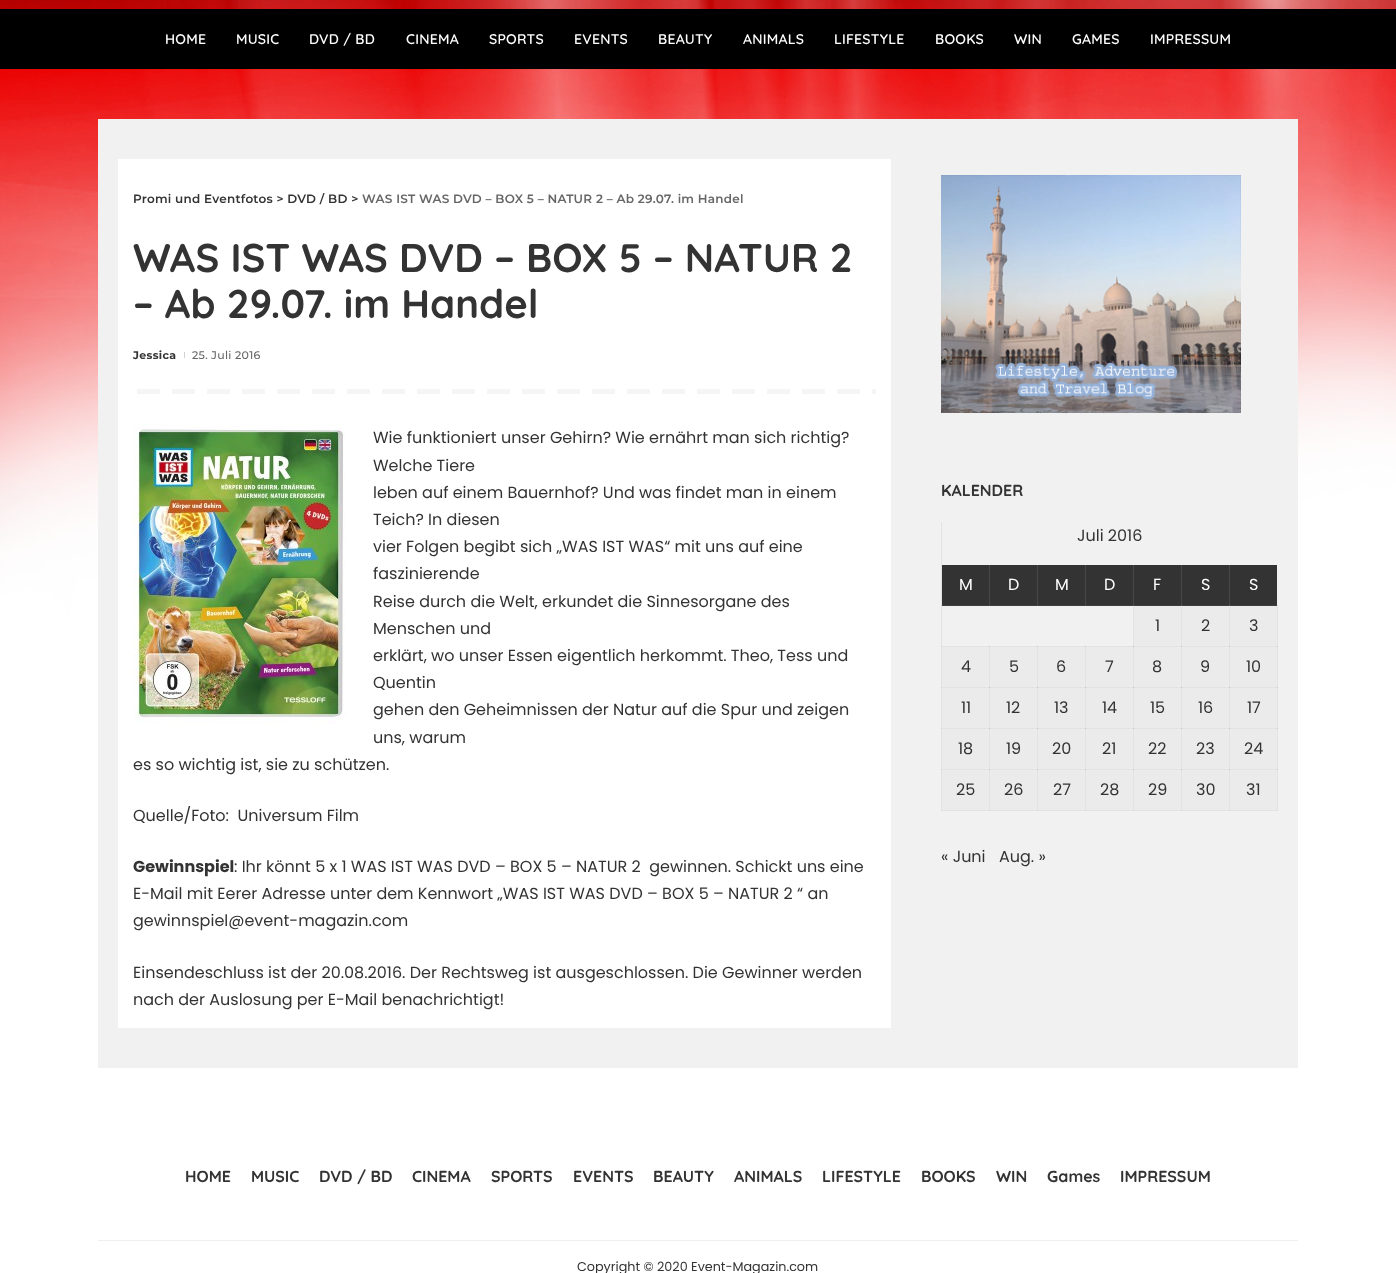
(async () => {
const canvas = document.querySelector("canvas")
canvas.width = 1396
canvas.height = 1273
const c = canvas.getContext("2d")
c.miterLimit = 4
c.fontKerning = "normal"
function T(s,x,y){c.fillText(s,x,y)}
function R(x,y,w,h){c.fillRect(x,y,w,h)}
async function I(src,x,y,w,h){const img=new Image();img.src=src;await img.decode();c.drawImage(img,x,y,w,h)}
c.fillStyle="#fff"
R(0,0,1396,1273)
await I("1.png",0,0,1396,644)
c.fillStyle="#000"
R(0,9,1396,60)
c.letterSpacing="0.25px"
c.font="600 14px Quicksand"
c.fillStyle="#fff"
T("HOME",165,44)
T("MUSIC",236,44)
T("DVD / BD",309,44)
T("CINEMA",406,44)
T("SPORTS",489,44)
T("EVENTS",574,44)
T("BEAUTY",658,44)
T("ANIMALS",743,44)
T("LIFESTYLE",834,44)
T("BOOKS",935,44)
T("WIN",1014,44)
T("GAMES",1072,44)
T("IMPRESSUM",1150,44)
c.fillStyle="#f1f1f1"
R(98,119,1200,949)
c.fillStyle="#e3e3e3"
R(1037,646,1,165)
R(989,646,49,1)
R(1085,646,1,165)
R(1037,646,49,1)
c.fillStyle="#cdcdcd"
R(1037,646,1,1)
c.fillStyle="#e3e3e3"
R(1133,646,1,165)
R(1085,646,49,1)
c.fillStyle="#cdcdcd"
R(1085,646,1,1)
c.fillStyle="#e3e3e3"
R(1181,646,1,165)
R(1133,646,49,1)
c.fillStyle="#cdcdcd"
R(1133,646,1,1)
c.fillStyle="#e3e3e3"
R(1229,646,1,165)
R(1181,646,49,1)
c.fillStyle="#cdcdcd"
R(1181,646,1,1)
c.fillStyle="#e3e3e3"
R(1277,646,1,165)
R(989,687,289,1)
c.fillStyle="#c4c4c4"
R(1037,687,1,1)
R(1085,687,1,1)
R(1133,687,1,1)
R(1181,687,1,1)
c.fillStyle="#e3e3e3"
R(989,728,289,1)
c.fillStyle="#c4c4c4"
R(1037,728,1,1)
R(1085,728,1,1)
R(1133,728,1,1)
R(1181,728,1,1)
c.fillStyle="#e3e3e3"
R(989,769,289,1)
c.fillStyle="#c4c4c4"
R(1037,769,1,1)
R(1085,769,1,1)
R(1133,769,1,1)
R(1181,769,1,1)
c.fillStyle="#fff"
R(118,159,773,869)
await I("2.png",137,389,739,5)
c.font="600 12px Montserrat"
c.fillStyle="#333"
T("Promi und Eventfotos > DVD / BD >",133,203)
c.fillStyle="#666"
T("WAS IST WAS DVD – BOX 5 – NATUR 2 – Ab 29.07. im Handel",362,203)
c.letterSpacing="0px"
c.font="bold 40px Quicksand"
c.fillStyle="#333"
T("WAS IST WAS DVD – BOX 5 – NATUR 2",133,272)
T("– Ab 29.07. im Handel",133,318)
c.letterSpacing="0.3px"
c.font="bold 11px Montserrat"
T("Jessica",133,359)
c.fillStyle="#d1d1d1"
R(184,352,1,6)
c.font="500 11px Montserrat"
c.fillStyle="#666"
T("25. Juli 2016",192,359)
await I("3.png",133,424,212,300)
c.letterSpacing="0px"
c.font="16px Poppins"
c.fillStyle="#333"
T("Wie funktioniert unser Gehirn? Wie ernährt man sich richtig?",373,443)
T("Welche Tiere",373,471)
T("leben auf einem Bauernhof? Und was findet man in einem",373,498)
T("Teich? In diesen",373,525)
T("vier Folgen begibt sich „WAS IST WAS“ mit uns auf eine",373,552)
T("faszinierende",373,579)
T("Reise durch die Welt, erkundet die Sinnesorgane des",373,607)
T("Menschen und",373,634)
T("erklärt, wo unser Essen eigentlich herkommt. Theo, Tess und",373,661)
T("Quentin",373,688)
T("gehen den Geheimnissen der Natur auf die Spur und zeigen",373,715)
T("uns, warum",373,743)
T("es so wichtig ist, sie zu schützen.",133,770)
T("Quelle/Foto:  Universum Film",133,821)
c.font="bold 16px Poppins"
T("Gewinnspiel",133,872)
c.font="16px Poppins"
T(": Ihr könnt 5 x 1 WAS IST WAS DVD – BOX 5 – NATUR 2  gewinnen. Schickt uns eine",234,872)
T("E-Mail mit Eerer Adresse unter dem Kennwort „WAS IST WAS DVD – BOX 5 – NATUR 2 “ an",133,899)
T("gewinnspiel@event-magazin.com",133,926)
T("Einsendeschluss ist der 20.08.2016. Der Rechtsweg ist ausgeschlossen. Die Gewinner werden",133,978)
T("nach der Auslosung per E-Mail benachrichtigt!",133,1005)
await I("4.png",941,175,300,238)
c.font="bold 16px Quicksand"
T("KALENDER",941,496)
c.fillStyle="#e3e3e3"
R(941,810,337,1)
c.fillStyle="#d7d7d7"
R(1037,810,1,1)
R(1085,810,1,1)
R(1133,810,1,1)
R(1181,810,1,1)
R(1229,810,1,1)
R(1277,810,1,1)
c.fillStyle="#88888821"
R(941,522,1,289)
c.font="16px Poppins"
c.fillStyle="#333"
T("Juli 2016",1077,541)
R(942,565,335,41)
c.fillStyle="#ffffff1a"
R(941,564,1,1)
c.fillStyle="#88888821"
R(1229,605,49,1)
R(1181,605,49,1)
R(1133,605,49,1)
R(941,605,193,1)
c.fillStyle="#ffffff1a"
R(989,564,1,42)
c.fillStyle="#fff"
T("M",959,590)
c.fillStyle="#ffffff1a"
R(1037,564,1,42)
c.fillStyle="#fff"
T("D",1008,590)
c.fillStyle="#ffffff1a"
R(1085,564,1,42)
c.fillStyle="#fff"
T("M",1055,590)
c.fillStyle="#88888821"
R(1133,605,1,42)
c.fillStyle="#ffffff1a"
R(1133,564,1,42)
c.fillStyle="#fff"
T("D",1104,590)
c.fillStyle="#88888821"
R(1181,605,1,42)
c.fillStyle="#ffffff1a"
R(1181,564,1,42)
c.fillStyle="#fff"
T("F",1153,590)
c.fillStyle="#e3e3e3"
R(1229,646,49,1)
c.fillStyle="#cdcdcd"
R(1229,646,1,1)
c.fillStyle="#88888821"
R(1229,605,1,42)
c.fillStyle="#ffffff1a"
R(1229,564,1,42)
c.fillStyle="#fff"
T("S",1201,590)
c.fillStyle="#d7d7d7"
R(1277,646,1,1)
c.fillStyle="#88888821"
R(1277,605,1,42)
c.fillStyle="#ffffff1a"
R(1277,605,1,1)
c.fillStyle="#fff"
T("S",1249,590)
c.fillStyle="#ebebeb"
R(1134,606,47,40)
c.fillStyle="#333"
T("1",1155,631)
c.fillStyle="#ebebeb"
R(1182,606,47,40)
c.fillStyle="#333"
T("2",1201,631)
c.fillStyle="#ebebeb"
R(1230,606,47,40)
c.fillStyle="#333"
T("3",1249,631)
c.fillStyle="#88888821"
R(941,646,49,1)
R(941,687,49,1)
R(941,728,49,1)
R(941,769,49,1)
R(989,769,1,42)
R(989,728,1,42)
R(989,687,1,42)
R(989,646,1,42)
c.fillStyle="#ebebeb"
R(942,647,47,40)
c.fillStyle="#333"
T("4",961,672)
c.fillStyle="#ebebeb"
R(990,647,47,40)
c.fillStyle="#333"
T("5",1009,672)
c.fillStyle="#ebebeb"
R(1038,647,47,40)
c.fillStyle="#333"
T("6",1056,672)
c.fillStyle="#ebebeb"
R(1086,647,47,40)
c.fillStyle="#333"
T("7",1105,672)
c.fillStyle="#ebebeb"
R(1134,647,47,40)
c.fillStyle="#333"
T("8",1152,672)
c.fillStyle="#ebebeb"
R(1182,647,47,40)
c.fillStyle="#333"
T("9",1200,672)
c.fillStyle="#ebebeb"
R(1230,647,47,40)
c.fillStyle="#333"
T("10",1246,672)
c.fillStyle="#ebebeb"
R(942,688,47,40)
c.fillStyle="#333"
T("11",961,713)
c.fillStyle="#ebebeb"
R(990,688,47,40)
c.fillStyle="#333"
T("12",1006,713)
c.fillStyle="#ebebeb"
R(1038,688,47,40)
c.fillStyle="#333"
T("13",1054,713)
c.fillStyle="#ebebeb"
R(1086,688,47,40)
c.fillStyle="#333"
T("14",1102,713)
c.fillStyle="#ebebeb"
R(1134,688,47,40)
c.fillStyle="#333"
T("15",1150,713)
c.fillStyle="#ebebeb"
R(1182,688,47,40)
c.fillStyle="#333"
T("16",1198,713)
c.fillStyle="#c4c4c4"
R(1229,687,1,1)
c.fillStyle="#cdcdcd"
R(1277,687,1,1)
c.fillStyle="#ebebeb"
R(1230,688,47,40)
c.fillStyle="#333"
T("17",1247,713)
c.fillStyle="#ebebeb"
R(942,729,47,40)
c.fillStyle="#333"
T("18",958,754)
c.fillStyle="#ebebeb"
R(990,729,47,40)
c.fillStyle="#333"
T("19",1006,754)
c.fillStyle="#ebebeb"
R(1038,729,47,40)
c.fillStyle="#333"
T("20",1052,754)
c.fillStyle="#ebebeb"
R(1086,729,47,40)
c.fillStyle="#333"
T("21",1102,754)
c.fillStyle="#ebebeb"
R(1134,729,47,40)
c.fillStyle="#333"
T("22",1148,754)
c.fillStyle="#ebebeb"
R(1182,729,47,40)
c.fillStyle="#333"
T("23",1196,754)
c.fillStyle="#c4c4c4"
R(1229,728,1,1)
c.fillStyle="#cdcdcd"
R(1277,728,1,1)
c.fillStyle="#ebebeb"
R(1230,729,47,40)
c.fillStyle="#333"
T("24",1244,754)
c.fillStyle="#ebebeb"
R(942,770,47,40)
c.fillStyle="#333"
T("25",956,795)
c.fillStyle="#ebebeb"
R(990,770,47,40)
c.fillStyle="#333"
T("26",1004,795)
c.fillStyle="#ebebeb"
R(1038,770,47,40)
c.fillStyle="#333"
T("27",1053,795)
c.fillStyle="#ebebeb"
R(1086,770,47,40)
c.fillStyle="#333"
T("28",1100,795)
c.fillStyle="#ebebeb"
R(1134,770,47,40)
c.fillStyle="#333"
T("29",1148,795)
c.fillStyle="#ebebeb"
R(1182,770,47,40)
c.fillStyle="#333"
T("30",1196,795)
c.fillStyle="#c4c4c4"
R(1229,769,1,1)
c.fillStyle="#cdcdcd"
R(1277,769,1,1)
c.fillStyle="#ebebeb"
R(1230,770,47,40)
c.fillStyle="#333"
T("31",1246,795)
T("« Juni",941,862)
T("Aug. »",999,862)
c.font="bold 16px Quicksand"
T("HOME",185,1182)
T("MUSIC",251,1182)
T("DVD / BD",319,1182)
T("CINEMA",412,1182)
T("SPORTS",491,1182)
T("EVENTS",573,1182)
T("BEAUTY",653,1182)
T("ANIMALS",734,1182)
T("LIFESTYLE",822,1182)
T("BOOKS",921,1182)
T("WIN",996,1182)
T("Games",1047,1182)
T("IMPRESSUM",1120,1182)
c.fillStyle="#efefef"
R(98,1240,1200,1)
c.font="12.75px Poppins"
c.fillStyle="#333"
T("Copyright © 2020 Event-Magazin.com",577,1271)
})()
